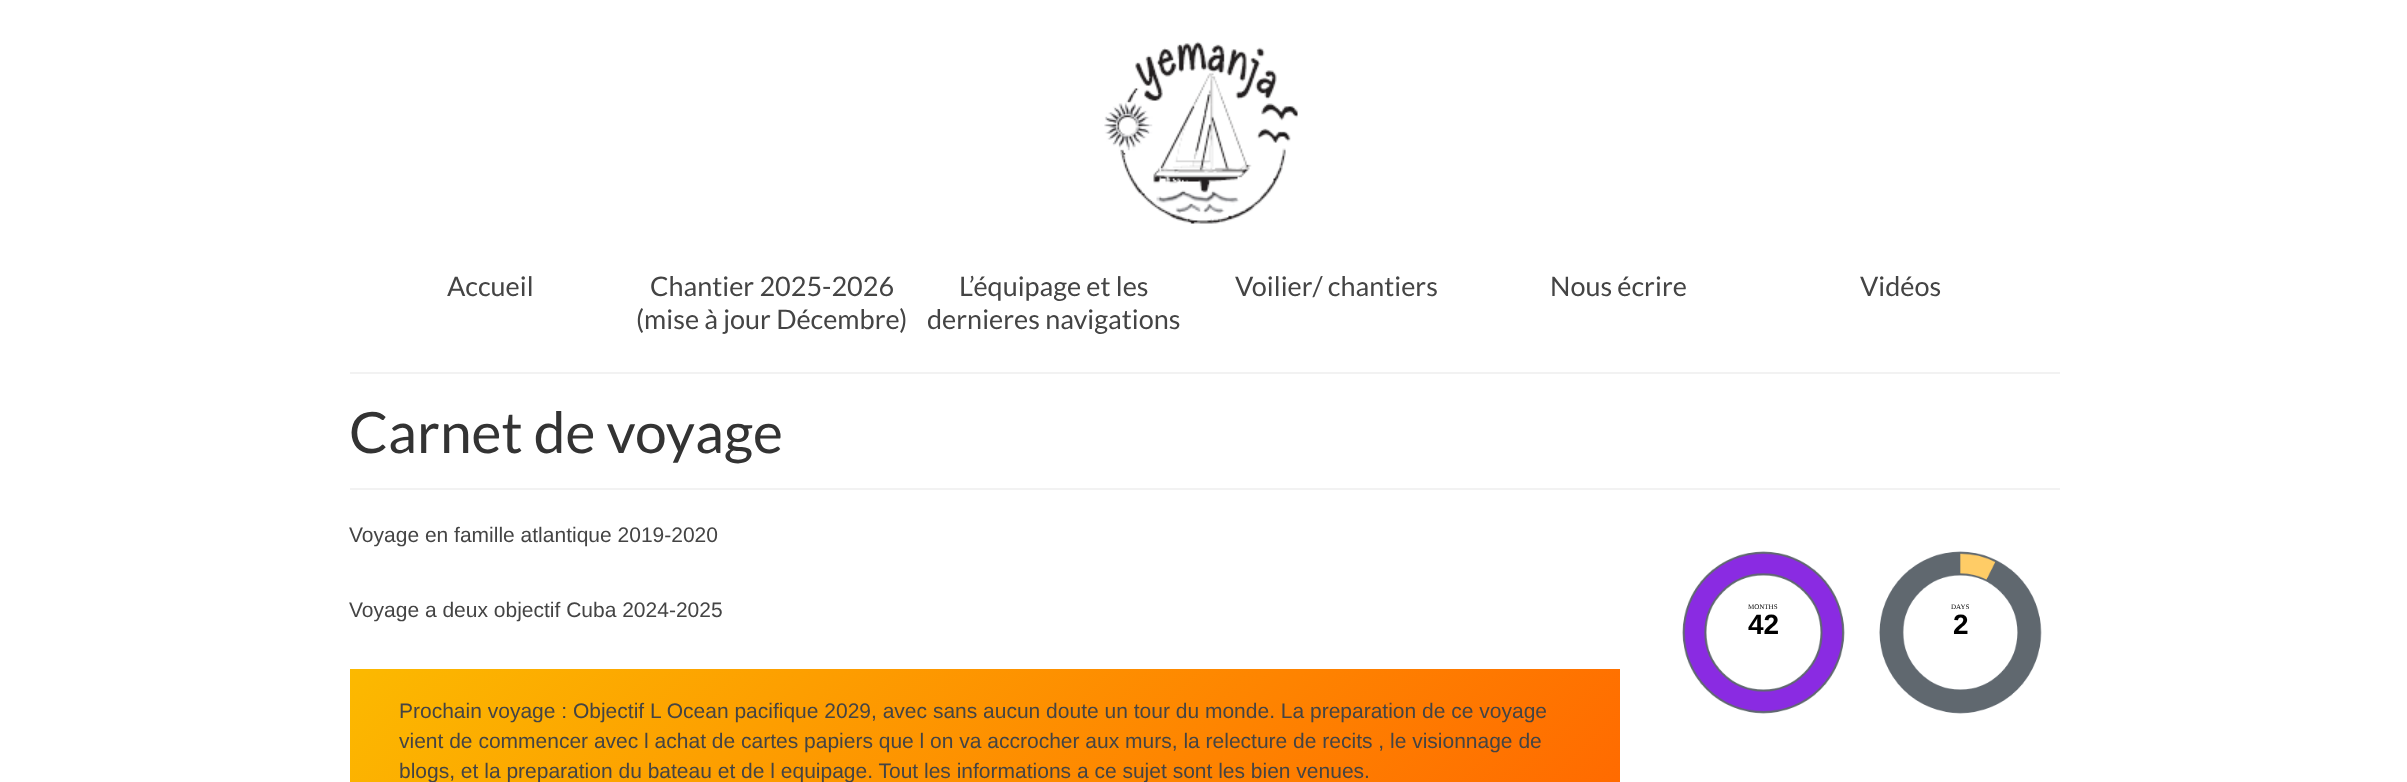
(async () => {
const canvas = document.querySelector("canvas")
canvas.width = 2407
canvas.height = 782
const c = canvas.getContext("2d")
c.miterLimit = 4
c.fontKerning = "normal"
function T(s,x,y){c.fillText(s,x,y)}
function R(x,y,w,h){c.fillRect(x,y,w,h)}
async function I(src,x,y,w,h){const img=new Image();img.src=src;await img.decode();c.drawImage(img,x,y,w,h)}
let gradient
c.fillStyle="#fff"
R(0,0,2407,782)
await I("1.png",1104,41,194,183)
c.font="27px Lato"
c.fillStyle="#444"
T("Accueil",447,296)
T("Chantier 2025-2026",650,296)
T("(mise à jour Décembre)",636,329)
T("L’équipage et les",959,296)
T("dernieres navigations",927,329)
T("Voilier/ chantiers",1235,296)
T("Nous écrire",1550,296)
T("Vidéos",1860,296)
c.fillStyle="#f2f2f2"
R(350,372,1710,2)
R(350,488,1710,2)
c.font="57px Lato"
c.fillStyle="#333"
T("Carnet de voyage",349,453)
c.font="21px Liberation Sans"
c.fillStyle="#444"
T("Voyage en famille atlantique 2019-2020",349,542)
T("Voyage a deux objectif Cuba 2024-2025",349,617)
gradient = c.createLinearGradient(632,387,1338,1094)
gradient.addColorStop(0,"#fcb900")
gradient.addColorStop(1,"#ff6900")
c.fillStyle = gradient
R(350,669,1270,113)
c.fillStyle="#444"
T("Prochain voyage : Objectif L Ocean pacifique 2029, avec sans aucun doute un tour du monde. La preparation de ce voyage",399,718)
T("vient de commencer avec l achat de cartes papiers que l on va accrocher aux murs, la relecture de recits , le visionnage de",399,748)
T("blogs, et la preparation du bateau et de l equipage. Tout les informations a ce sujet sont les bien venues.",399,778)
await I("2.png",1682,551,360,163)
c.font="7px Liberation Serif"
c.fillStyle="#000"
T("MONTHS",1748,609)
c.font="bold 28px Liberation Sans"
T("42",1748,634)
c.font="7px Liberation Serif"
T("DAYS",1951,609)
c.font="bold 28px Liberation Sans"
T("2",1953,634)
})()
